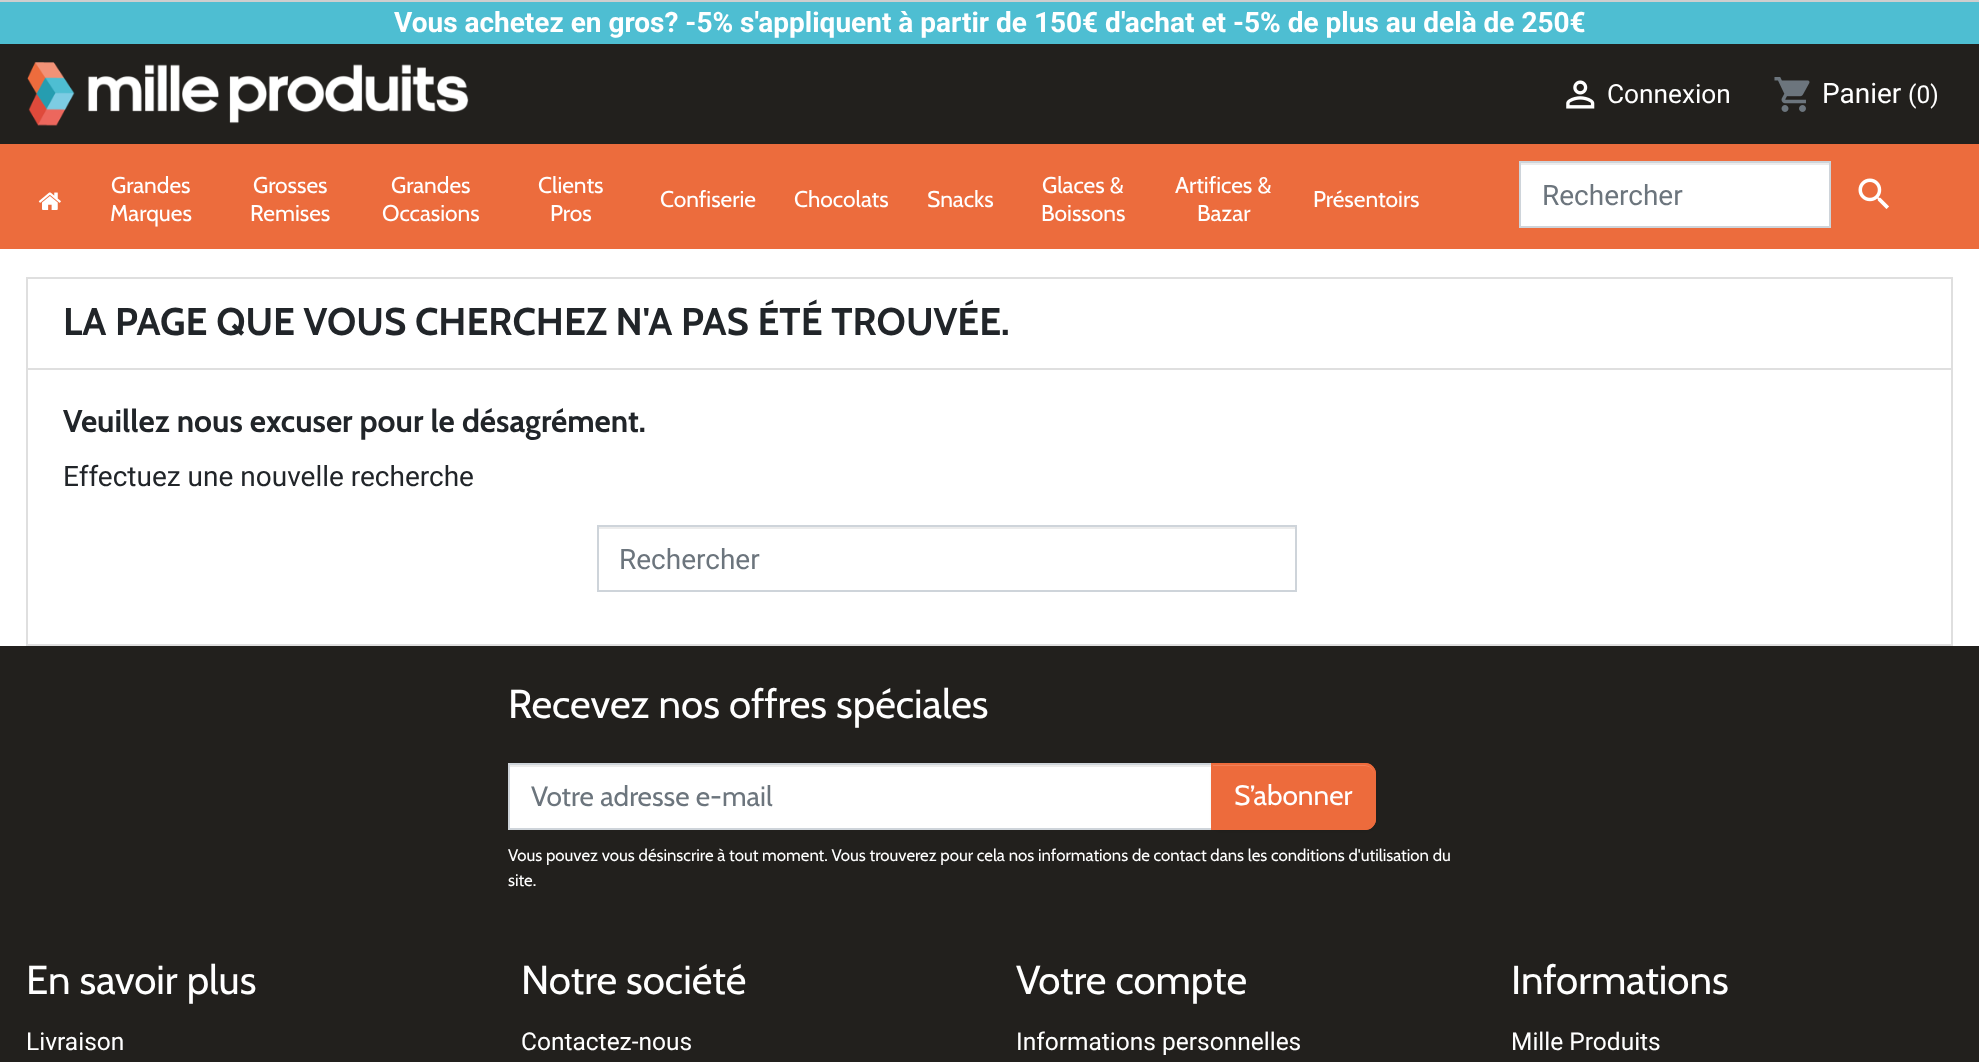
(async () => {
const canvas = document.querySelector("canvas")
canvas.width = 1979
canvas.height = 1062
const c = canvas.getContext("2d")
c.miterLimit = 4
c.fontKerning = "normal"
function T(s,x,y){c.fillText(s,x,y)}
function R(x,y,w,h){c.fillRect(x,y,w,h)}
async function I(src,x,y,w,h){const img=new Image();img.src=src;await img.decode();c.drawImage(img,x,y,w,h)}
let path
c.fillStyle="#fff"
R(0,0,1979,1062)
c.fillStyle="#cecece"
R(0,0,1979,2)
c.fillStyle="#ec6c3d"
R(0,144,1979,105)
c.fillStyle="#4ebed2"
R(0,2,1979,42)
c.font="bold 28px Roboto"
c.fillStyle="#fff"
T("Vous achetez en gros? -5% s'appliquent à partir de 150€ d'achat et -5% de plus au delà de 250€",394,32)
c.fillStyle="#22201d"
R(0,44,1979,100)
await I("1.png",27,62,442,64)
await I("2.png",1566,80,29,29)
c.font="26.25px Roboto"
c.fillStyle="#fff"
T("Connexion",1607,103)
await I("3.png",1774,77,36,35)
c.font="28px Roboto"
T("Panier",1822,103)
c.font="24.5px Roboto"
T("(0)",1908,103)
await I("4.png",38,192,23,18)
c.font="22.75px Cabin"
T("Grandes",111,193)
T("Marques",110,221)
T("Grosses",253,193)
T("Remises",250,221)
T("Grandes",391,193)
T("Occasions",382,221)
T("Clients",538,193)
T("Pros",550,221)
T("Confiserie",660,207)
T("Chocolats",794,207)
T("Snacks",927,207)
T("Glaces &",1042,193)
T("Boissons",1041,221)
T("Artifices &",1175,193)
T("Bazar",1197,221)
T("Présentoirs",1313,207)
R(1521,165,308,61)
c.fillStyle="#ececec"
R(1521,163,308,2)
c.strokeStyle="#ced4da"
c.lineWidth=2
c.strokeRect(1520,162,310,65)
c.font="28px Roboto"
c.fillStyle="#6c757d"
T("Rechercher",1542,205)
await I("5.png",1858,178,31,31)
c.strokeStyle="#dfdfdf"
c.strokeRect(27,278,1925,367)
c.fillStyle="#dfdfdf"
R(28,368,1923,2)
c.font="bold 38.5px Cabin"
c.fillStyle="#212529"
T("LA PAGE QUE VOUS CHERCHEZ N'A PAS ÉTÉ TROUVÉE.",63,335)
c.font="bold 31.5px Cabin"
T("Veuillez nous excuser pour le désagrément.",63,432)
c.font="28px Roboto"
T("Effectuez une nouvelle recherche",63,486)
c.fillStyle="#ececec"
R(599,527,696,2)
c.strokeStyle="#ced4da"
c.strokeRect(598,526,698,65)
c.fillStyle="#6c757d"
T("Rechercher",619,569)
c.fillStyle="#22201d"
R(0,646,1979,416)
c.font="40.25px Cabin"
c.fillStyle="#fff"
T("Recevez nos offres spéciales",508,718)
R(510,767,701,61)
c.fillStyle="#ececec"
R(509,765,702,2)
c.strokeRect(509,764,703,65)
c.font="28px Cabin"
c.fillStyle="#6c757d"
T("Votre adresse e-mail",531,806)
c.fillStyle="#00000012"
c.filter="blur(1px)"
c.beginPath()
c.roundRect(1211,765,165,66,11)
c.fill()
c.filter="none"
c.fillStyle="#ed6b3c"
c.beginPath()
c.roundRect(1211,763,165,67,[0,11,11,0])
c.fill()
c.fillStyle="#f08159"
path = new Path2D("M1213 766h152c5 0 9 4 9 9v-1c0-5-4-9-9-9h-152z")
c.fill(path)
c.beginPath()
c.roundRect(1212,764,163,65,[0,10,10,0])
c.strokeStyle="#ed6b3c"
c.stroke()
c.fillStyle="#fff"
T("S’abonner",1234,805)
c.font="16.8px Cabin"
T("Vous pouvez vous désinscrire à tout moment. Vous trouverez pour cela nos informations de contact dans les conditions d'utilisation du",508,861)
T("site.",508,886)
c.font="40.25px Cabin"
T("En savoir plus",26,994)
c.font="24.5px Roboto"
T("Livraison",26,1050)
c.font="40.25px Cabin"
T("Notre société",521,994)
c.font="24.5px Roboto"
T("Contactez-nous",521,1050)
c.font="40.25px Cabin"
T("Votre compte",1016,994)
c.font="24.5px Roboto"
T("Informations personnelles",1016,1050)
c.font="40.25px Cabin"
T("Informations",1511,994)
c.font="24.5px Roboto"
T("Mille Produits",1511,1050)
})()
